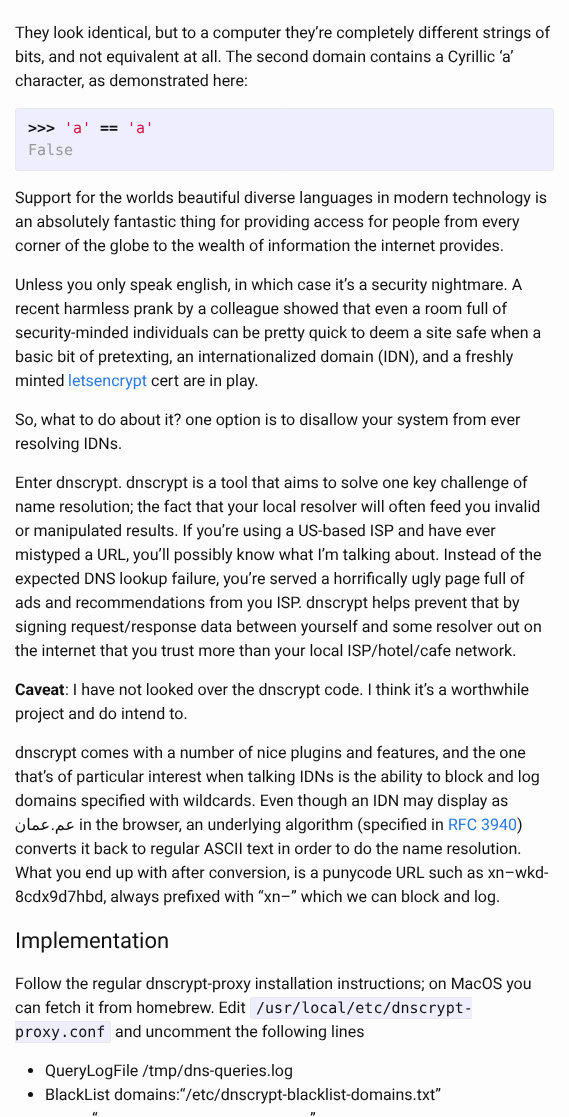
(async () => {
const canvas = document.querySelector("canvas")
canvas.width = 569
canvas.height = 1117
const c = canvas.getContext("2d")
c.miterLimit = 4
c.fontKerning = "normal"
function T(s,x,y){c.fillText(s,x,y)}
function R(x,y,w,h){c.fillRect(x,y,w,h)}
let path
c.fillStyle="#fdfdfd"
R(0,0,569,1117)
c.font="16px Roboto"
c.fillStyle="#111"
T("They look identical, but to a computer they’re completely different strings of",15,38)
T("bits, and not equivalent at all. The second domain contains a Cyrillic ‘a’",15,62)
T("character, as demonstrated here:",15,86)
c.fillStyle="#eef"
c.beginPath()
c.roundRect(15.5,108.5,538,62,2.5)
c.fill()
c.strokeStyle="#e8e8e8"
c.stroke()
c.font="bold 15px DejaVu Sans Mono"
c.fillStyle="#111"
T(">>>",28,133)
c.font="15px DejaVu Sans Mono"
c.fillStyle="#d14"
T("'a'",64,133)
c.font="bold 15px DejaVu Sans Mono"
c.fillStyle="#111"
T("==",100,133)
c.font="15px DejaVu Sans Mono"
c.fillStyle="#d14"
T("'а'",127,133)
c.fillStyle="#999"
T("False",28,155)
c.font="16px Roboto"
c.fillStyle="#111"
T("Support for the worlds beautiful diverse languages in modern technology is",15,203)
T("an absolutely fantastic thing for providing access for people from every",15,227)
T("corner of the globe to the wealth of information the internet provides.",15,251)
T("Unless you only speak english, in which case it’s a security nightmare. A",15,290)
T("recent harmless prank by a colleague showed that even a room full of",15,314)
T("security-minded individuals can be pretty quick to deem a site safe when a",15,338)
T("basic bit of pretexting, an internationalized domain (IDN), and a freshly",15,362)
T("minted",15,386)
c.fillStyle="#2a7ae2"
T("letsencrypt",68,386)
c.fillStyle="#111"
T("cert are in play.",151,386)
T("So, what to do about it? one option is to disallow your system from ever",15,425)
T("resolving IDNs.",15,449)
T("Enter dnscrypt. dnscrypt is a tool that aims to solve one key challenge of",15,488)
T("name resolution; the fact that your local resolver will often feed you invalid",15,512)
T("or manipulated results. If you’re using a US-based ISP and have ever",15,536)
T("mistyped a URL, you’ll possibly know what I’m talking about. Instead of the",15,560)
T("expected DNS lookup failure, you’re served a horrifically ugly page full of",15,584)
T("ads and recommendations from you ISP. dnscrypt helps prevent that by",15,608)
T("signing request/response data between yourself and some resolver out on",15,632)
T("the internet that you trust more than your local ISP/hotel/cafe network.",15,656)
c.font="bold 16px Roboto"
T("Caveat",15,695)
c.font="16px Roboto"
T(": I have not looked over the dnscrypt code. I think it’s a worthwhile",65,695)
T("project and do intend to.",15,719)
T("dnscrypt comes with a number of nice plugins and features, and the one",15,758)
T("that’s of particular interest when talking IDNs is the ability to block and log",15,782)
T("domains specified with wildcards. Even though an IDN may display as",15,806)
c.direction="rtl"
c.font="16px DejaVu Sans"
T("عمان",50,830)
c.font="16px Roboto"
T(".",55,830)
c.font="16px DejaVu Sans"
T("عم",75,830)
c.direction="ltr"
c.font="16px Roboto"
T("in the browser, an underlying algorithm (specified in",79,830)
c.fillStyle="#2a7ae2"
T("RFC 3940",448,830)
c.fillStyle="#111"
T(")",517,830)
T("converts it back to regular ASCII text in order to do the name resolution.",15,854)
T("What you end up with after conversion, is a punycode URL such as xn–wkd-",15,878)
T("8cdx9d7hbd, always prefixed with “xn–” which we can block and log.",15,902)
c.font="22px Roboto"
T("Implementation",15,948)
c.font="16px Roboto"
T("Follow the regular dnscrypt-proxy installation instructions; on MacOS you",15,989)
T("can fetch it from homebrew. Edit",15,1013)
c.fillStyle="#eef"
c.beginPath()
c.roundRect(250,997,222,22,[3,0,0,3])
c.fill()
c.fillStyle="#e8e8e8"
path = new Path2D("M253 997h219v22h-219c-2 0-3-1-3-3v-16c0-2 1-3 3-3zm0 1h219v20h-219c-1 0-2-1-2-2v-16c0-1 1-2 2-2z")
c.fill(path,"evenodd")
c.font="15px DejaVu Sans Mono"
c.fillStyle="#111"
T("/usr/local/etc/dnscrypt-",256,1013)
c.fillStyle="#eef"
c.beginPath()
c.roundRect(15,1021,96,22,[0,3,3,0])
c.fill()
c.fillStyle="#e8e8e8"
path = new Path2D("M15 1021h93c2 0 3 1 3 3v16c0 2-1 3-3 3h-93zm0 1h93c1 0 2 1 2 2v16c0 1-1 2-2 2h-93z")
c.fill(path,"evenodd")
c.fillStyle="#111"
T("proxy.conf",15,1037)
c.font="16px Roboto"
T("and uncomment the following lines",115,1037)
c.beginPath()
c.arc(30.5,1070.5,2.5,0,7)
c.fill()
T("QueryLogFile /tmp/dns-queries.log",45,1076)
c.beginPath()
c.arc(30.5,1094.5,2.5,0,7)
c.fill()
T("BlackList domains:“/etc/dnscrypt-blacklist-domains.txt”",45,1100)
T("“",92,1124)
T("”",310,1124)
})()
